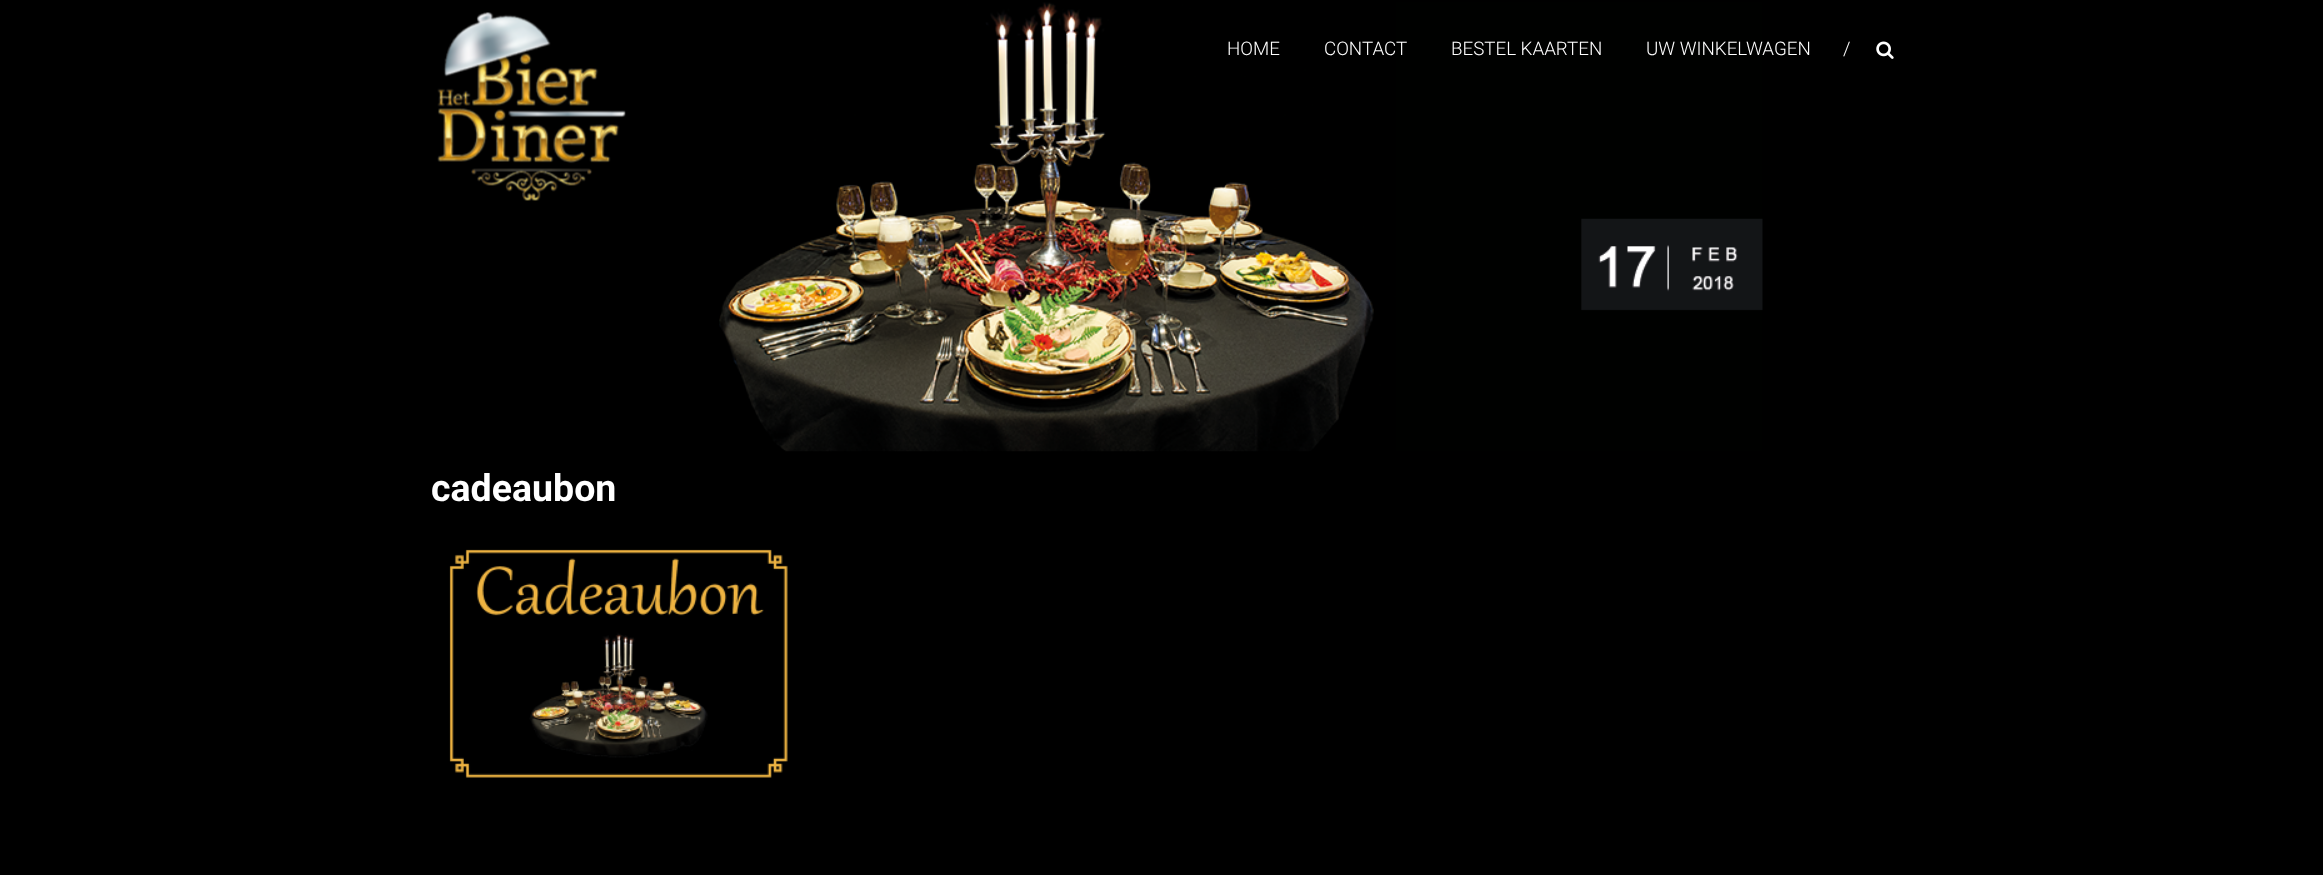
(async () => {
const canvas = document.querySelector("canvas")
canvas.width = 2323
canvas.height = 875
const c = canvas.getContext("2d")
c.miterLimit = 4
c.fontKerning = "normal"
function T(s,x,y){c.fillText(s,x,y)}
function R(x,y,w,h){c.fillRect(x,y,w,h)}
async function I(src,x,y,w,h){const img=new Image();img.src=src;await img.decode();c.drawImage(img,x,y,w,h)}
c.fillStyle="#000"
R(0,0,2323,875)
await I("1.png",719,2,1044,450)
await I("2.png",437,12,189,189)
c.font="300 18.75px Roboto"
c.fillStyle="#fff"
T("HOME",1227,55)
T("CONTACT",1324,55)
T("BESTEL KAARTEN",1451,55)
T("UW WINKELWAGEN",1646,55)
T("/",1843,55)
await I("3.png",1876,41,18,18)
c.font="bold 37.5px Roboto"
T("cadeaubon",431,501)
await I("4.png",449,549,339,229)
})()
